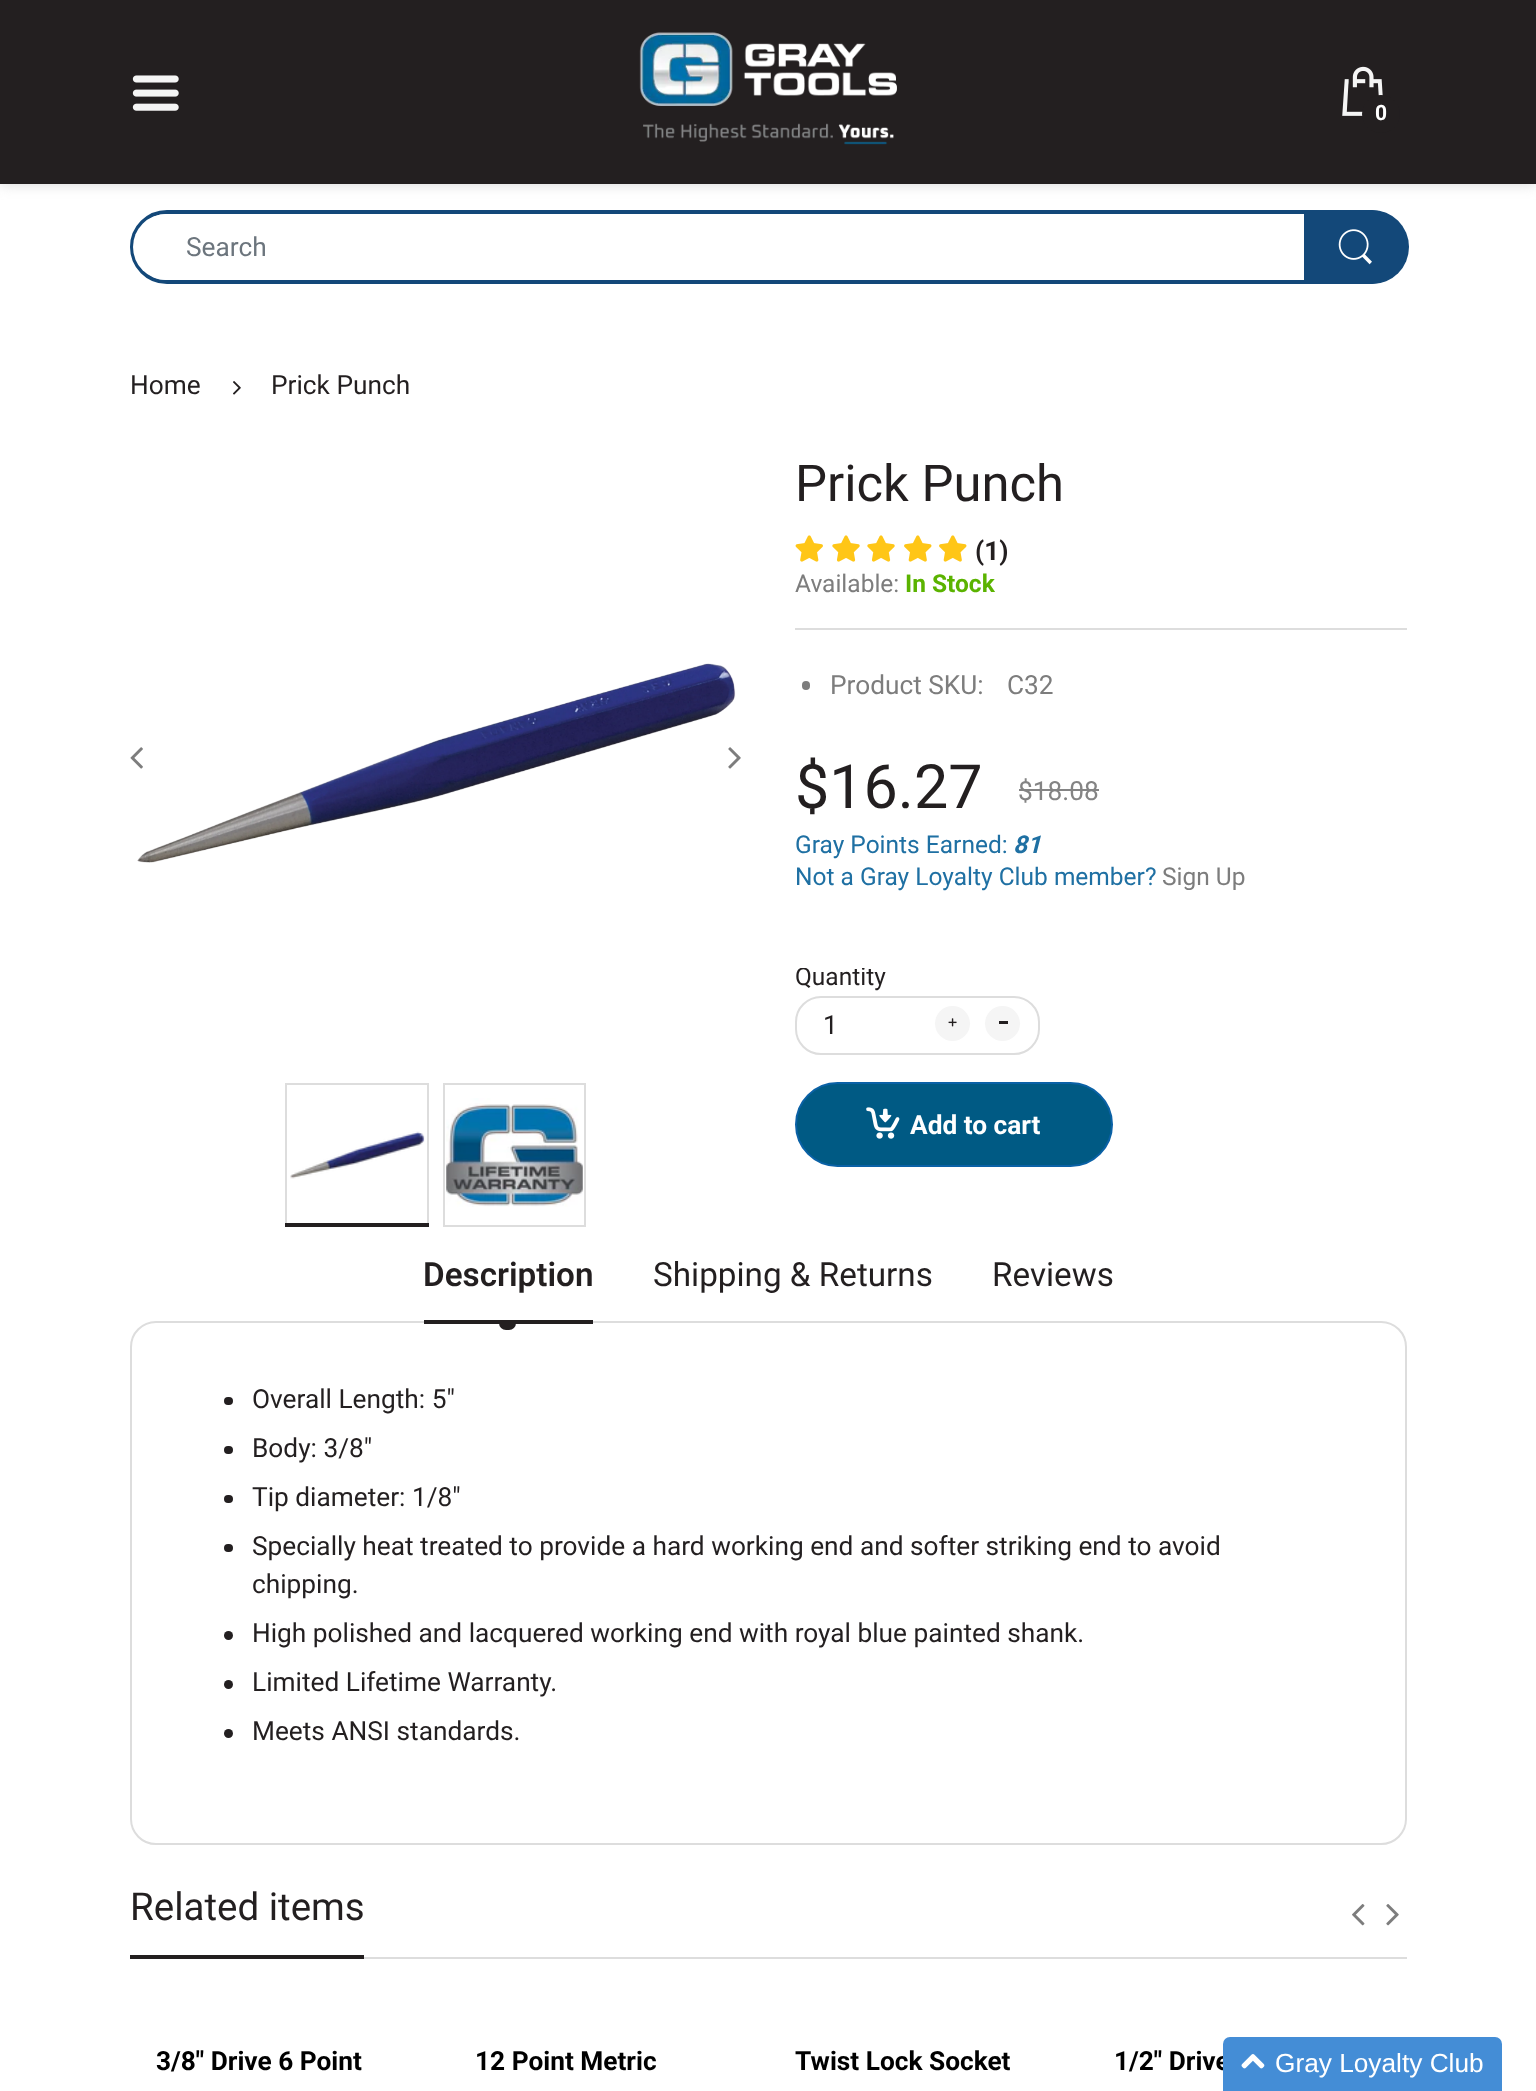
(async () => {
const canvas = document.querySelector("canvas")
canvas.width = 1536
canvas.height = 2091
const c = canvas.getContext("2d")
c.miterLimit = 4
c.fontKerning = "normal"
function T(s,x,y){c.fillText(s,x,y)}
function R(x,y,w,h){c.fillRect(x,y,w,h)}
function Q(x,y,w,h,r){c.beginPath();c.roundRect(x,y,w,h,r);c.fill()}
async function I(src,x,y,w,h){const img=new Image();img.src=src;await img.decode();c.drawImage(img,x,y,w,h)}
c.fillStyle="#fff"
R(0,0,1536,2091)
c.fillStyle="#c9c9c9bf"
c.filter="blur(7px)"
c.beginPath()
c.rect(0,0,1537,184)
c.fill()
c.filter="none"
c.fillStyle="#231f20"
R(0,0,1536,184)
await I("1.png",132,75,47,36)
await I("2.png",639,32,258,113)
await I("3.png",1342,66,41,50)
c.beginPath()
c.arc(1381,114,19,0,7)
c.fill()
c.font="bold 21px Roboto"
c.fillStyle="#fff"
T("0",1375,120)
c.beginPath()
c.roundRect(132,212,1273,70,35)
c.strokeStyle="#134879"
c.lineWidth=4
c.stroke()
Q(133,214,1271,66,33)
c.font="26.25px Roboto"
c.fillStyle="#6c757d"
T("Search",186,256)
c.fillStyle="#134879"
c.beginPath()
c.roundRect(1304,210,105,74,[0,37,37,0])
c.fill()
await I("4.png",1338,229,34,36)
c.fillStyle="#231f20"
T("Home",130,394)
await I("5.png",233,381,8,14)
T("Prick Punch",271,394)
await I("6.png",137,663,599,200)
await I("7.png",130,747,13,22)
await I("8.png",728,747,13,22)
c.strokeStyle="#ddd"
c.lineWidth=2
c.strokeRect(286,1084,142,142)
await I("9.png",290,1131,135,48)
R(285,1223,144,4)
c.strokeRect(444,1084,141,142)
await I("10.png",446,1098,137,109)
c.font="50.75px Roboto"
T("Prick Punch",795,501)
await I("11.png",795,535,28,27)
await I("12.png",832,535,28,27)
await I("12.png",867,535,28,27)
await I("13.png",904,535,28,27)
await I("13.png",939,535,28,27)
c.font="bold 26.25px Roboto"
T("(1)",975,560)
c.fillStyle="#ddd"
R(795,628,612,2)
c.font="24.5px Roboto"
c.fillStyle="#7d7d7d"
T("Available:",795,592)
c.font="bold 24.5px Roboto"
c.fillStyle="#5bb300"
T("In Stock",905,592)
c.fillStyle="#7d7d7d"
Q(802,681,8,9,4)
c.font="26.25px Roboto"
T("Product SKU:",830,694)
T("C32",1007,694)
c.font="61px Roboto"
c.fillStyle="#231f20"
T("$16.27",795,808)
c.font="26.25px Roboto"
c.fillStyle="#848484"
T("$18.08",1018,800)
R(1019,789,80,2)
c.font="24.5px Roboto"
c.fillStyle="#1f70a3"
T("Gray Points Earned:",795,853)
c.font="italic bold 24.5px Roboto"
T("81",1013,853)
c.font="24.5px Roboto"
T("Not a Gray Loyalty Club member?",795,885)
c.fillStyle="#7d7d7d"
T("Sign Up",1162,885)
c.save()
c.beginPath()
c.rect(795,968,612,226)
c.clip()
c.fillStyle="#231f20"
T("Quantity",795,985)
c.restore()
c.beginPath()
c.roundRect(796,997,243,57,25)
c.stroke()
c.font="26.25px Roboto"
c.fillStyle="#231f20"
T("1",823,1034)
c.fillStyle="#f5f5f5"
c.beginPath()
c.arc(952.5,1023.5,17.5,0,7)
c.fill()
await I("14.png",948,1018,9,9)
c.beginPath()
c.arc(1002.5,1023.5,17.5,0,7)
c.fill()
c.fillStyle="#231f20"
R(999,1021,9,3)
c.fillStyle="#005a84"
c.beginPath()
c.roundRect(796,1083,316,83,41.5)
c.fill()
c.strokeStyle="#0a61a6"
c.stroke()
await I("15.png",866,1107,34,32)
c.font="bold 26.25px Roboto"
c.fillStyle="#fff"
T("Add to cart",910,1134)
c.font="600 33.25px Roboto"
c.fillStyle="#231f20"
T("Description",423,1286)
c.beginPath()
c.roundRect(131,1322,1275,522,25)
c.strokeStyle="#ddd"
c.stroke()
R(424,1320,169,4)
c.beginPath()
c.roundRect(499,1323,17,7,[0,0,7,7])
c.fill()
c.font="33.25px Roboto"
T("Shipping & Returns",653,1286)
T("Reviews",992,1286)
Q(224,1397,9,8,4)
c.font="26.25px Roboto"
T("Overall Length: 5\"",252,1408)
Q(224,1446,9,8,4)
T("Body: 3/8\"",252,1457)
Q(224,1495,9,8,4)
T("Tip diameter: 1/8\"",252,1506)
Q(224,1544,9,8,4)
T("Specially heat treated to provide a hard working end and softer striking end to avoid",252,1555)
T("chipping.",252,1593)
c.beginPath()
c.arc(228.5,1635.5,4.5,0,7)
c.fill()
T("High polished and lacquered working end with royal blue painted shank.",252,1642)
c.beginPath()
c.arc(228.5,1684.5,4.5,0,7)
c.fill()
T("Limited Lifetime Warranty.",252,1691)
c.beginPath()
c.arc(228.5,1733.5,4.5,0,7)
c.fill()
T("Meets ANSI standards.",252,1740)
c.fillStyle="#ddd"
R(364,1957,1043,2)
c.font="38.5px Roboto"
c.fillStyle="#231f20"
T("Related items",130,1920)
R(130,1955,234,4)
await I("16.png",1352,1904,13,22)
await I("17.png",1386,1904,13,22)
c.font="bold 26.25px Roboto"
c.fillStyle="#000"
T("3/8\" Drive 6 Point",156,2070)
T("12 Point Metric",475,2070)
T("Twist Lock Socket",795,2070)
T("1/2\" Drive",1114,2070)
c.fillStyle="#448dd6"
c.beginPath()
c.roundRect(1223,2037,279,54,[7,7,0,0])
c.fill()
await I("18.png",1241,2054,24,15)
c.font="26.25px Liberation Sans"
c.fillStyle="#fff"
T("Gray Loyalty Club",1275,2072)
})()
